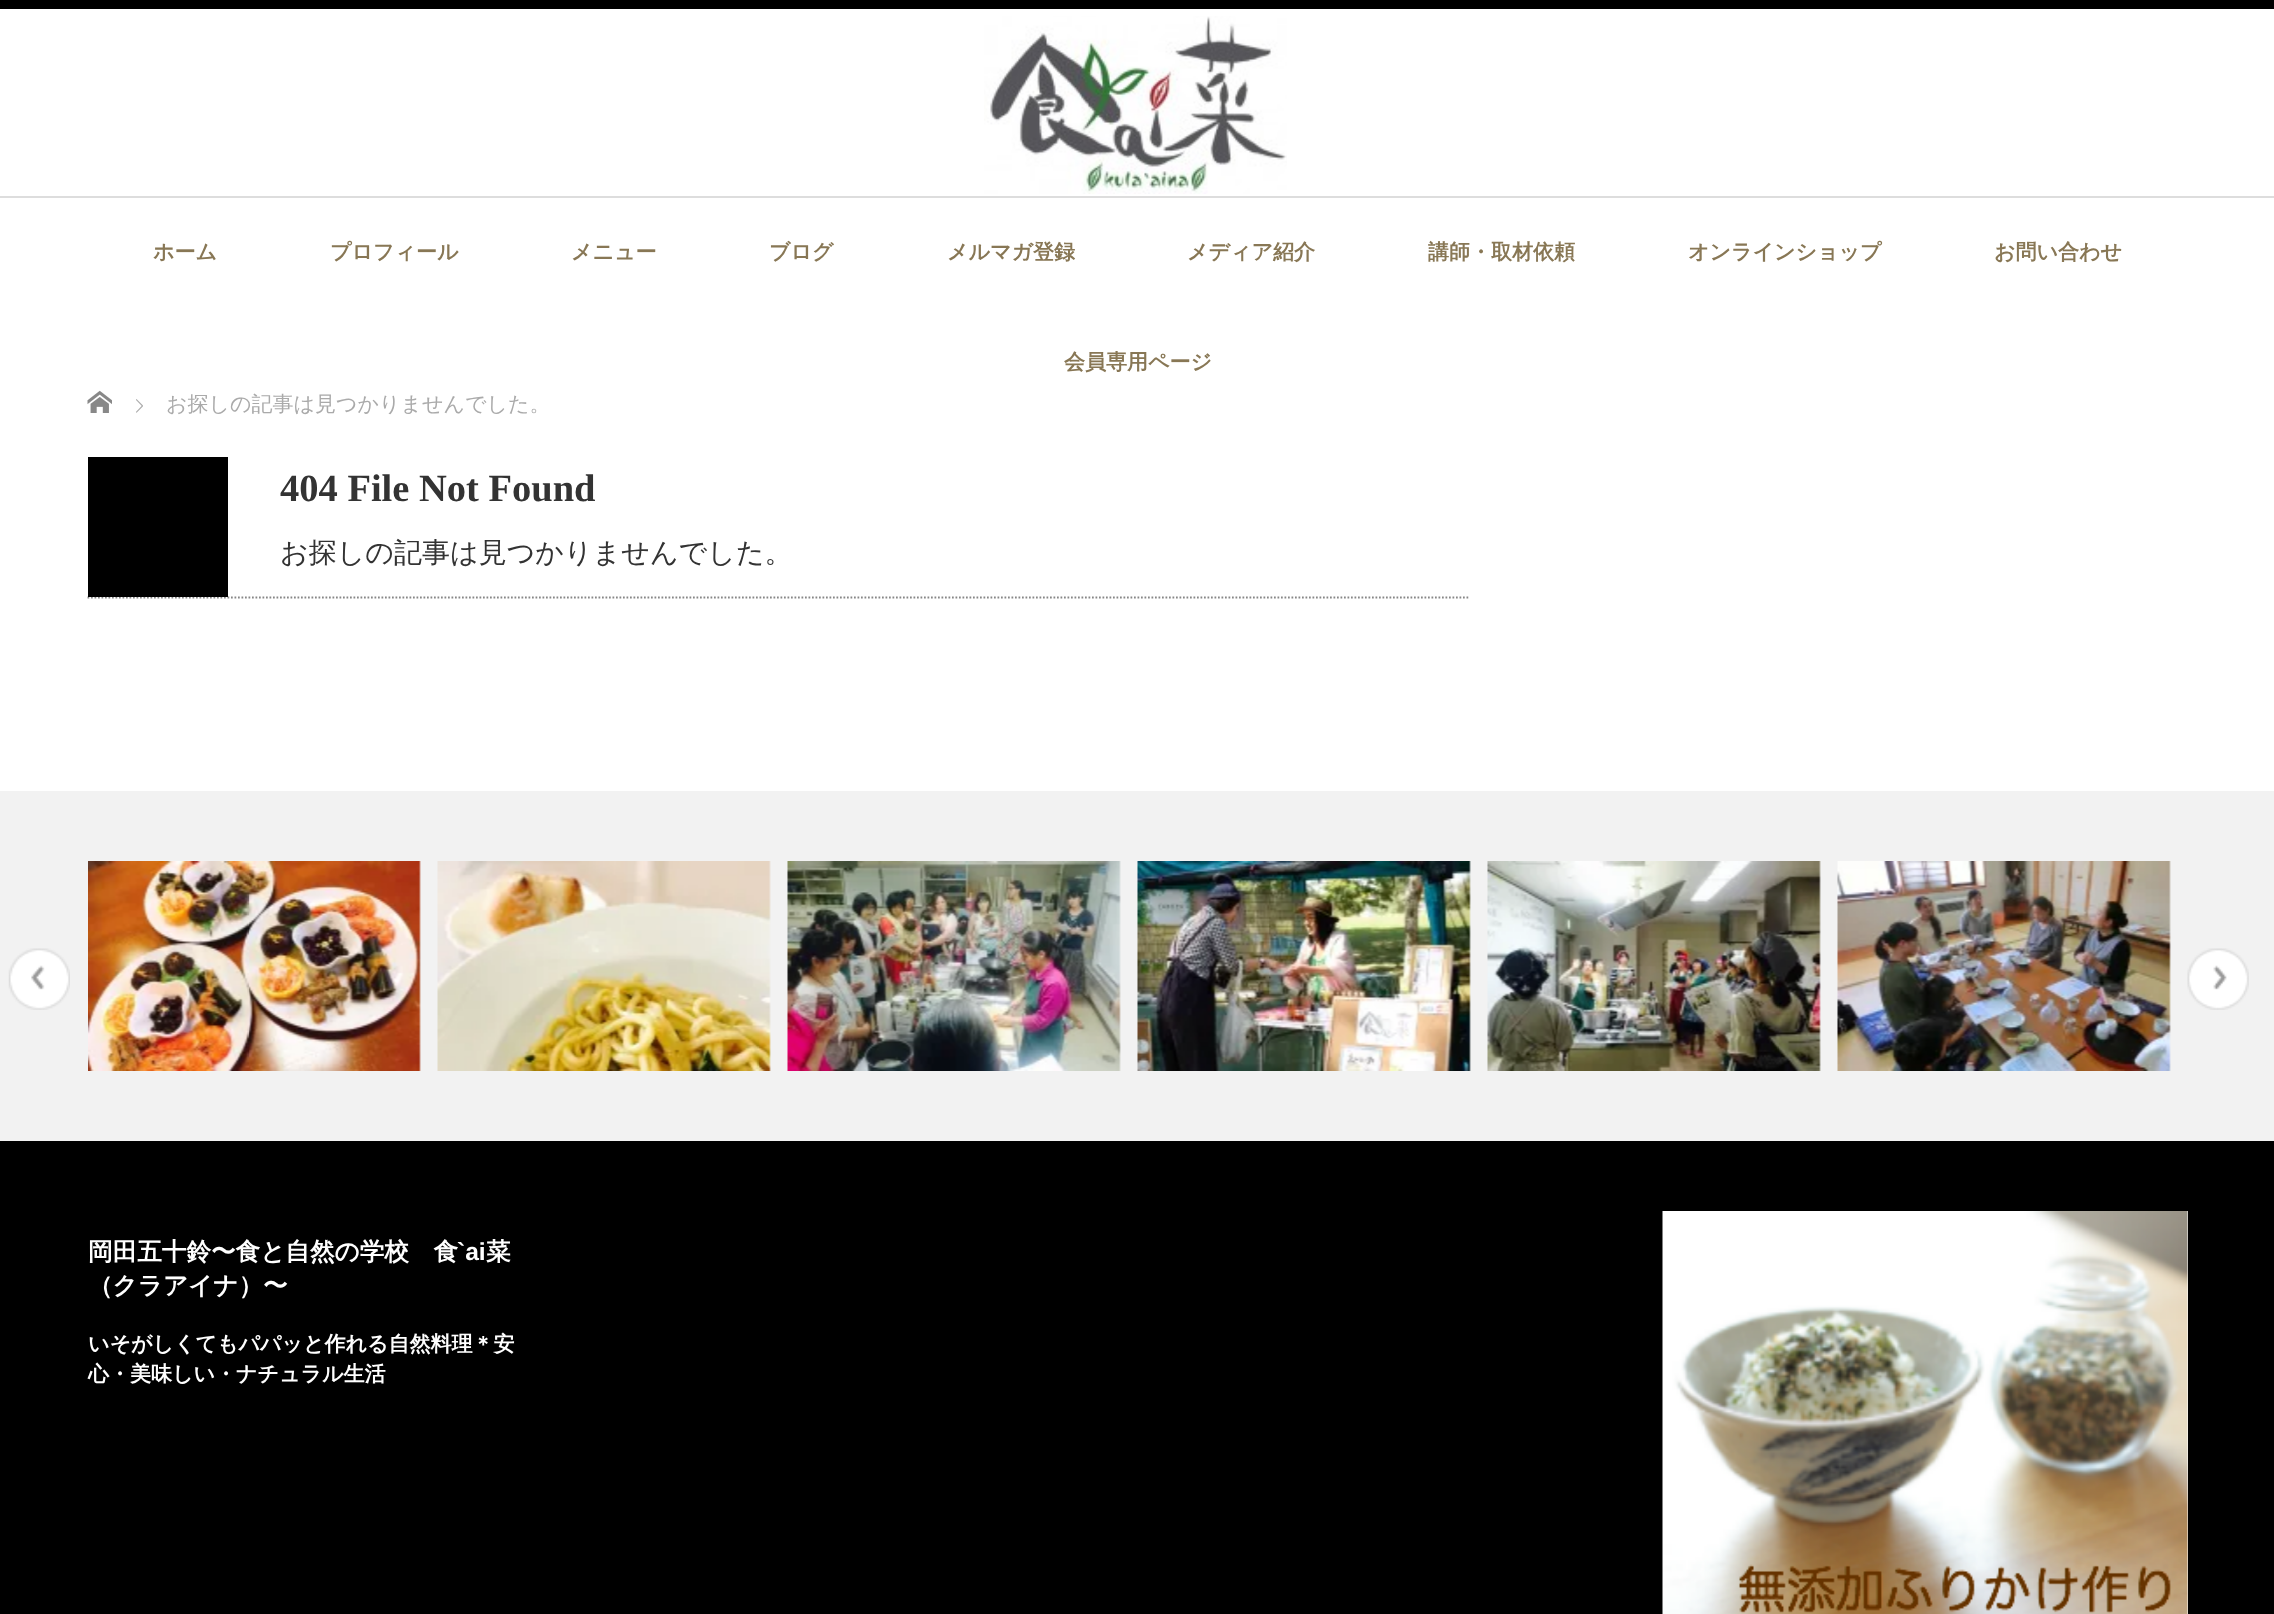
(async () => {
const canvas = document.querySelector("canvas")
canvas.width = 2274
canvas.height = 1614
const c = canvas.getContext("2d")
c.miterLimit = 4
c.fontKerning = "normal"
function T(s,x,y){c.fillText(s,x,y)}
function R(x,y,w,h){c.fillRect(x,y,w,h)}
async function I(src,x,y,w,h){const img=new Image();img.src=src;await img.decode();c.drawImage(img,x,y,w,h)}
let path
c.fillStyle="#fff"
R(0,0,2274,1614)
c.fillStyle="#000"
R(0,0,2274,9)
await I("1.png",984,16,303,178)
c.fillStyle="#ddd"
R(0,196,2274,2)
c.font="bold 21px WenQuanYi Zen Hei"
c.fillStyle="#875"
T("ホーム",153,259)
T("プロフィール",330,259)
T("メニュー",571,259)
T("ブログ",769,259)
T("メルマガ登録",947,259)
T("メディア紹介",1187,259)
T("講師・取材依頼",1428,259)
T("オンラインショップ",1688,259)
T("お問い合わせ",1994,259)
T("会員専用ページ",1064,369)
await I("2.png",87,390,25,23)
await I("3.png",136,399,7,14)
c.font="500 21px WenQuanYi Zen Hei"
c.fillStyle="#aaa"
T("お探しの記事は見つかりませんでした。",166,411)
path = new Path2D("M87.5 597.5h1382.5")
c.strokeStyle="#878787"
c.lineWidth=1.8
c.setLineDash([1.75,1.75])
c.stroke(path)
c.fillStyle="#000"
R(88,457,140,140)
c.font="bold 38.5px Liberation Serif"
c.fillStyle="#333"
T("404 File Not Found",280,501)
c.font="500 28px WenQuanYi Zen Hei"
T("お探しの記事は見つかりませんでした。",280,562)
c.fillStyle="#f2f2f2"
R(0,791,2274,350)
await I("4.png",8,948,62,62)
await I("5.png",88,861,333,210)
await I("6.png",437,861,334,210)
await I("7.png",787,861,334,210)
await I("8.png",1137,861,334,210)
await I("9.png",1487,861,334,210)
await I("10.png",1837,861,334,210)
await I("11.png",2187,948,62,62)
c.fillStyle="#000"
R(0,1141,2274,473)
c.font="bold 24.6px WenQuanYi Zen Hei"
c.fillStyle="#fff"
T("岡田五十鈴〜食と自然の学校　食",88,1260)
c.font="bold 24.6px Liberation Sans"
T("`ai",457,1260)
c.font="bold 24.6px WenQuanYi Zen Hei"
T("菜",486,1260)
T("（クラアイナ）〜",88,1294)
c.font="bold 21px WenQuanYi Zen Hei"
T("いそがしくてもパパッと作れる自然料理＊安",88,1351)
T("心・美味しい・ナチュラル生活",88,1381)
R(2187,1211,1,403)
await I("12.png",1662,1211,526,403)
})()
